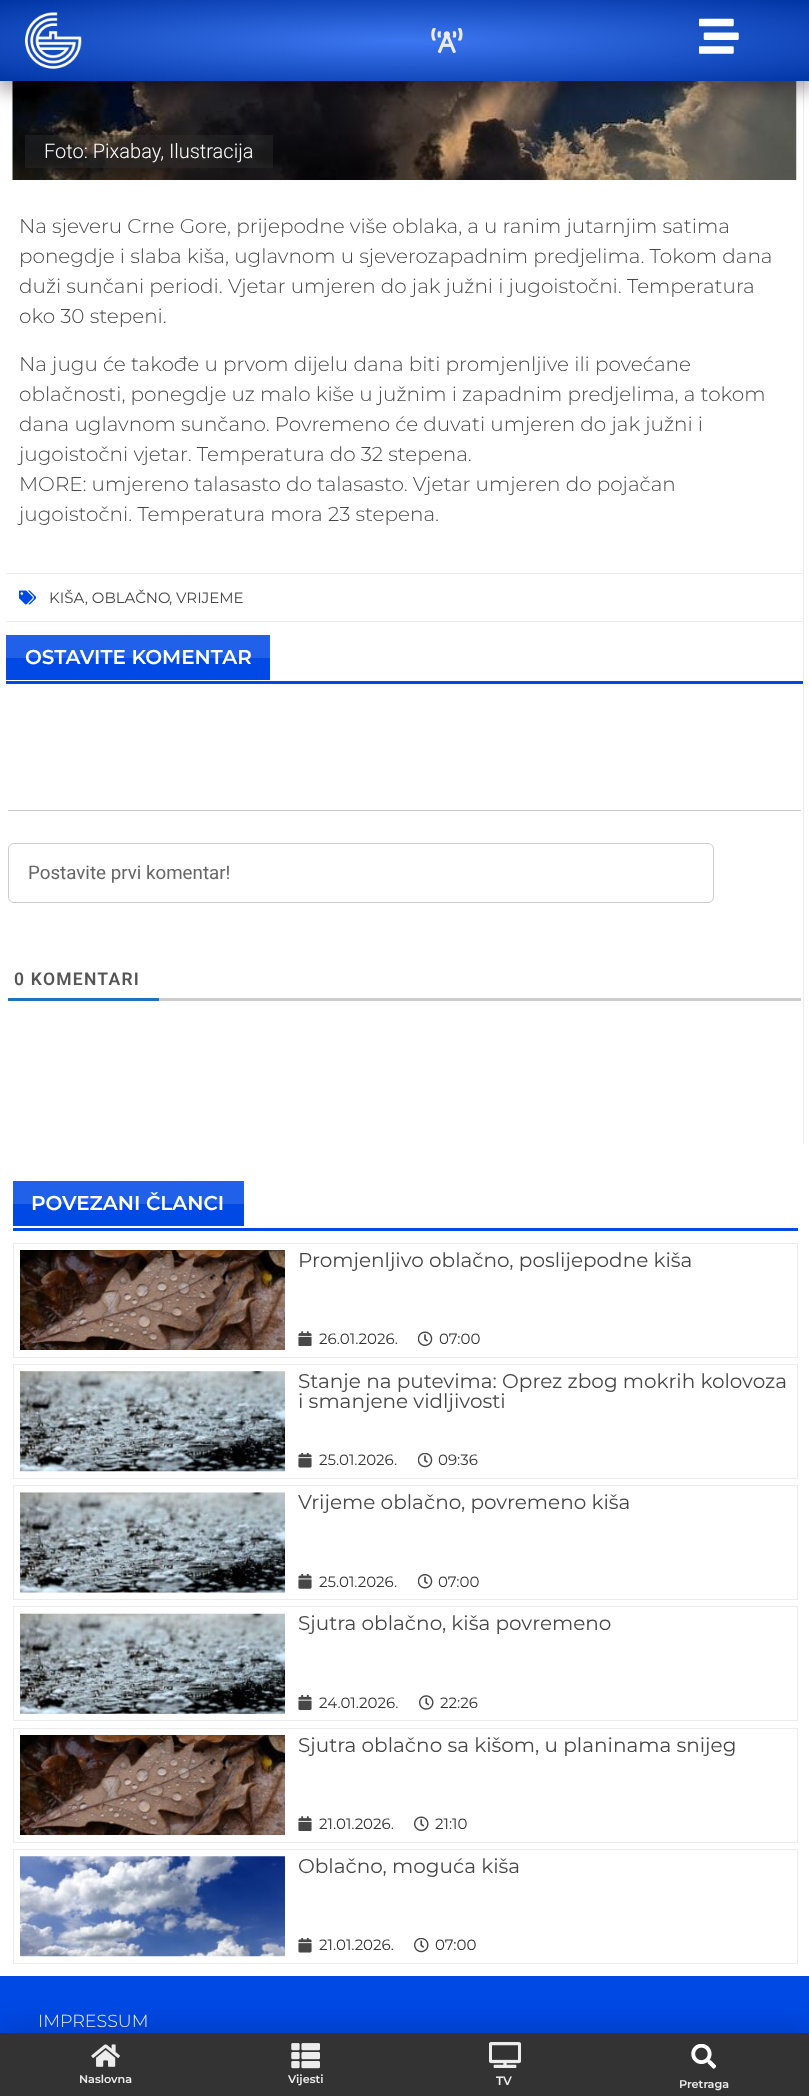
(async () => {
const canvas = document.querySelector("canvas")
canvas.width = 809
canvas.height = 2096
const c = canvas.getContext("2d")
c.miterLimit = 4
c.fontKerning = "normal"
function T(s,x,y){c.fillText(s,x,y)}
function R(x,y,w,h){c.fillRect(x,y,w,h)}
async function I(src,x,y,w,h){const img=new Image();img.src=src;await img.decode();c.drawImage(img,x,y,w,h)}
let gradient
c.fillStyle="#fff"
R(0,0,809,2096)
c.fillStyle="#ececec"
R(803,81,1,1063)
await I("4.png",12,81,785,99)
c.fillStyle="#0000005e"
c.filter="blur(9.5px)"
c.beginPath()
c.rect(-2,4,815,86)
c.fill()
c.filter="none"
gradient = c.createRadialGradient(405,412.16,0,405,412.16,573)
gradient.addColorStop(0,"#3d77f1")
gradient.addColorStop(1,"#0035a5")
c.fillStyle = gradient
c.beginPath()
c.rect(0,0,809,81)
c.save()
c.clip()
c.scale(1,57 / 573)
c.fillRect(0,0,809,21071)
c.restore()
await I("1.png",25,12,57,57)
await I("2.png",431,28,32,26)
await I("3.png",699,18,40,36)
c.fillStyle="#33333361"
R(25,135,248,33)
c.font="300 20px Roboto"
c.fillStyle="#fff"
T("Foto: Pixabay, Ilustracija",44,158)
c.font="300 20px Montserrat"
c.fillStyle="#474747"
T("Na sjeveru Crne Gore, prijepodne više oblaka, a u ranim jutarnjim satima",19,233)
T("ponegdje i slaba kiša, uglavnom u sjeverozapadnim predjelima. Tokom dana",19,263)
T("duži sunčani periodi. Vjetar umjeren do jak južni i jugoistočni. Temperatura",19,293)
T("oko 30 stepeni.",19,323)
T("Na jugu će takođe u prvom dijelu dana biti promjenljive ili povećane",19,371)
T("oblačnosti, ponegdje uz malo kiše u južnim i zapadnim predjelima, a tokom",19,401)
T("dana uglavnom sunčano. Povremeno će duvati umjeren do jak južni i",19,431)
T("jugoistočni vjetar. Temperatura do 32 stepena.",19,461)
T("MORE: umjereno talasasto do talasasto. Vjetar umjeren do pojačan",19,491)
T("jugoistočni. Temperatura mora 23 stepena.",19,521)
c.fillStyle="#ececec"
R(6,573,797,1)
R(6,621,797,1)
await I("5.png",19,590,17,15)
c.font="15px Montserrat"
c.fillStyle="#474747"
T("KIŠA, OBLAČNO",49,603)
T(", VRIJEME",169,603)
c.fillStyle="#0049e5"
R(6,681,797,3)
c.fillStyle="#2161ea"
R(6,635,264,23)
c.fillStyle="#0049e5"
R(6,658,264,22)
c.font="600 20px Montserrat"
c.fillStyle="#fff"
T("OSTAVITE KOMENTAR",25,664)
c.fillStyle="#ccc"
R(8,810,793,1)
c.beginPath()
c.roundRect(8.5,843.5,705,59,5.5)
c.strokeStyle="#ccc"
c.stroke()
c.font="18.75px Roboto"
c.fillStyle="#666"
T("Postavite prvi komentar!",28,879)
c.fillStyle="#ccc"
R(159,998,642,3)
c.fillStyle="#1e73be"
R(8,998,151,3)
c.letterSpacing="1.25px"
c.font="600 17.5px Roboto"
c.fillStyle="#555"
T("0 KOMENTARI",14,985)
c.fillStyle="#0049e5"
R(13,1228,785,3)
c.fillStyle="#2161ea"
R(13,1181,231,23)
c.fillStyle="#0049e5"
R(13,1204,231,22)
c.letterSpacing="0px"
c.font="600 20px Montserrat"
c.fillStyle="#fff"
T("POVEZANI ČLANCI",31,1210)
c.strokeStyle="#ececec"
c.strokeRect(13.5,1243.5,784,114)
await I("6.png",20,1250,265,100)
c.font="20px Montserrat"
c.fillStyle="#474747"
T("Promjenljivo oblačno, poslijepodne kiša",298,1267)
await I("7.png",298,1331,14,15)
c.font="15px Montserrat"
c.fillStyle="#333"
T("26.01.2026.",319,1344)
await I("8.png",418,1331,15,15)
T("07:00",439,1344)
c.strokeRect(13.5,1364.5,784,114)
await I("9.png",20,1371,265,101)
c.font="20px Montserrat"
c.fillStyle="#474747"
T("Stanje na putevima: Oprez zbog mokrih kolovoza",298,1388)
T("i smanjene vidljivosti",298,1408)
await I("10.png",298,1453,14,15)
c.font="15px Montserrat"
c.fillStyle="#333"
T("25.01.2026.",319,1465)
await I("11.png",418,1453,15,15)
T("09:36",438,1465)
c.strokeRect(13.5,1485.5,784,114)
await I("12.png",20,1492,265,101)
c.font="20px Montserrat"
c.fillStyle="#474747"
T("Vrijeme oblačno, povremeno kiša",298,1509)
await I("13.png",298,1574,14,15)
c.font="15px Montserrat"
c.fillStyle="#333"
T("25.01.2026.",319,1587)
await I("14.png",418,1574,15,15)
T("07:00",438,1587)
c.strokeRect(13.5,1606.5,784,114)
await I("15.png",20,1613,265,101)
c.font="20px Montserrat"
c.fillStyle="#474747"
T("Sjutra oblačno, kiša povremeno",298,1630)
await I("16.png",298,1695,14,15)
c.font="15px Montserrat"
c.fillStyle="#333"
T("24.01.2026.",319,1708)
await I("17.png",419,1695,15,15)
T("22:26",440,1708)
c.strokeRect(13.5,1728.5,784,114)
await I("6.png",20,1735,265,100)
c.font="20px Montserrat"
c.fillStyle="#474747"
T("Sjutra oblačno sa kišom, u planinama snijeg",298,1752)
await I("7.png",298,1816,14,15)
c.font="15px Montserrat"
c.fillStyle="#333"
T("21.01.2026.",319,1829)
await I("18.png",414,1816,15,15)
T("21:10",435,1829)
c.strokeRect(13.5,1849.5,784,114)
await I("19.png",20,1856,265,101)
c.font="20px Montserrat"
c.fillStyle="#474747"
T("Oblačno, moguća kiša",298,1873)
await I("10.png",298,1938,14,15)
c.font="15px Montserrat"
c.fillStyle="#333"
T("21.01.2026.",319,1950)
await I("20.png",414,1938,15,15)
T("07:00",435,1950)
c.fillStyle="#0049e5"
R(0,1976,809,57)
c.font="300 17.5px Montserrat"
c.fillStyle="#fff"
T("IMPRESSUM",38,2027)
c.fillStyle="#00000026"
c.filter="blur(13px)"
c.beginPath()
c.rect(0,2026,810,64)
c.fill()
c.filter="none"
c.fillStyle="#333"
R(0,2033,809,63)
await I("21.png",91,2044,29,23)
c.font="600 11.25px Montserrat"
c.fillStyle="#ececec"
T("Naslovna",79,2083)
await I("22.png",291,2043,29,26)
T("Vijesti",288,2083)
await I("23.png",489,2042,32,26)
c.font="600 12px Montserrat"
T("TV",496,2085)
await I("24.png",691,2044,25,25)
c.font="600 11.25px Montserrat"
T("Pretraga",679,2088)
})()
